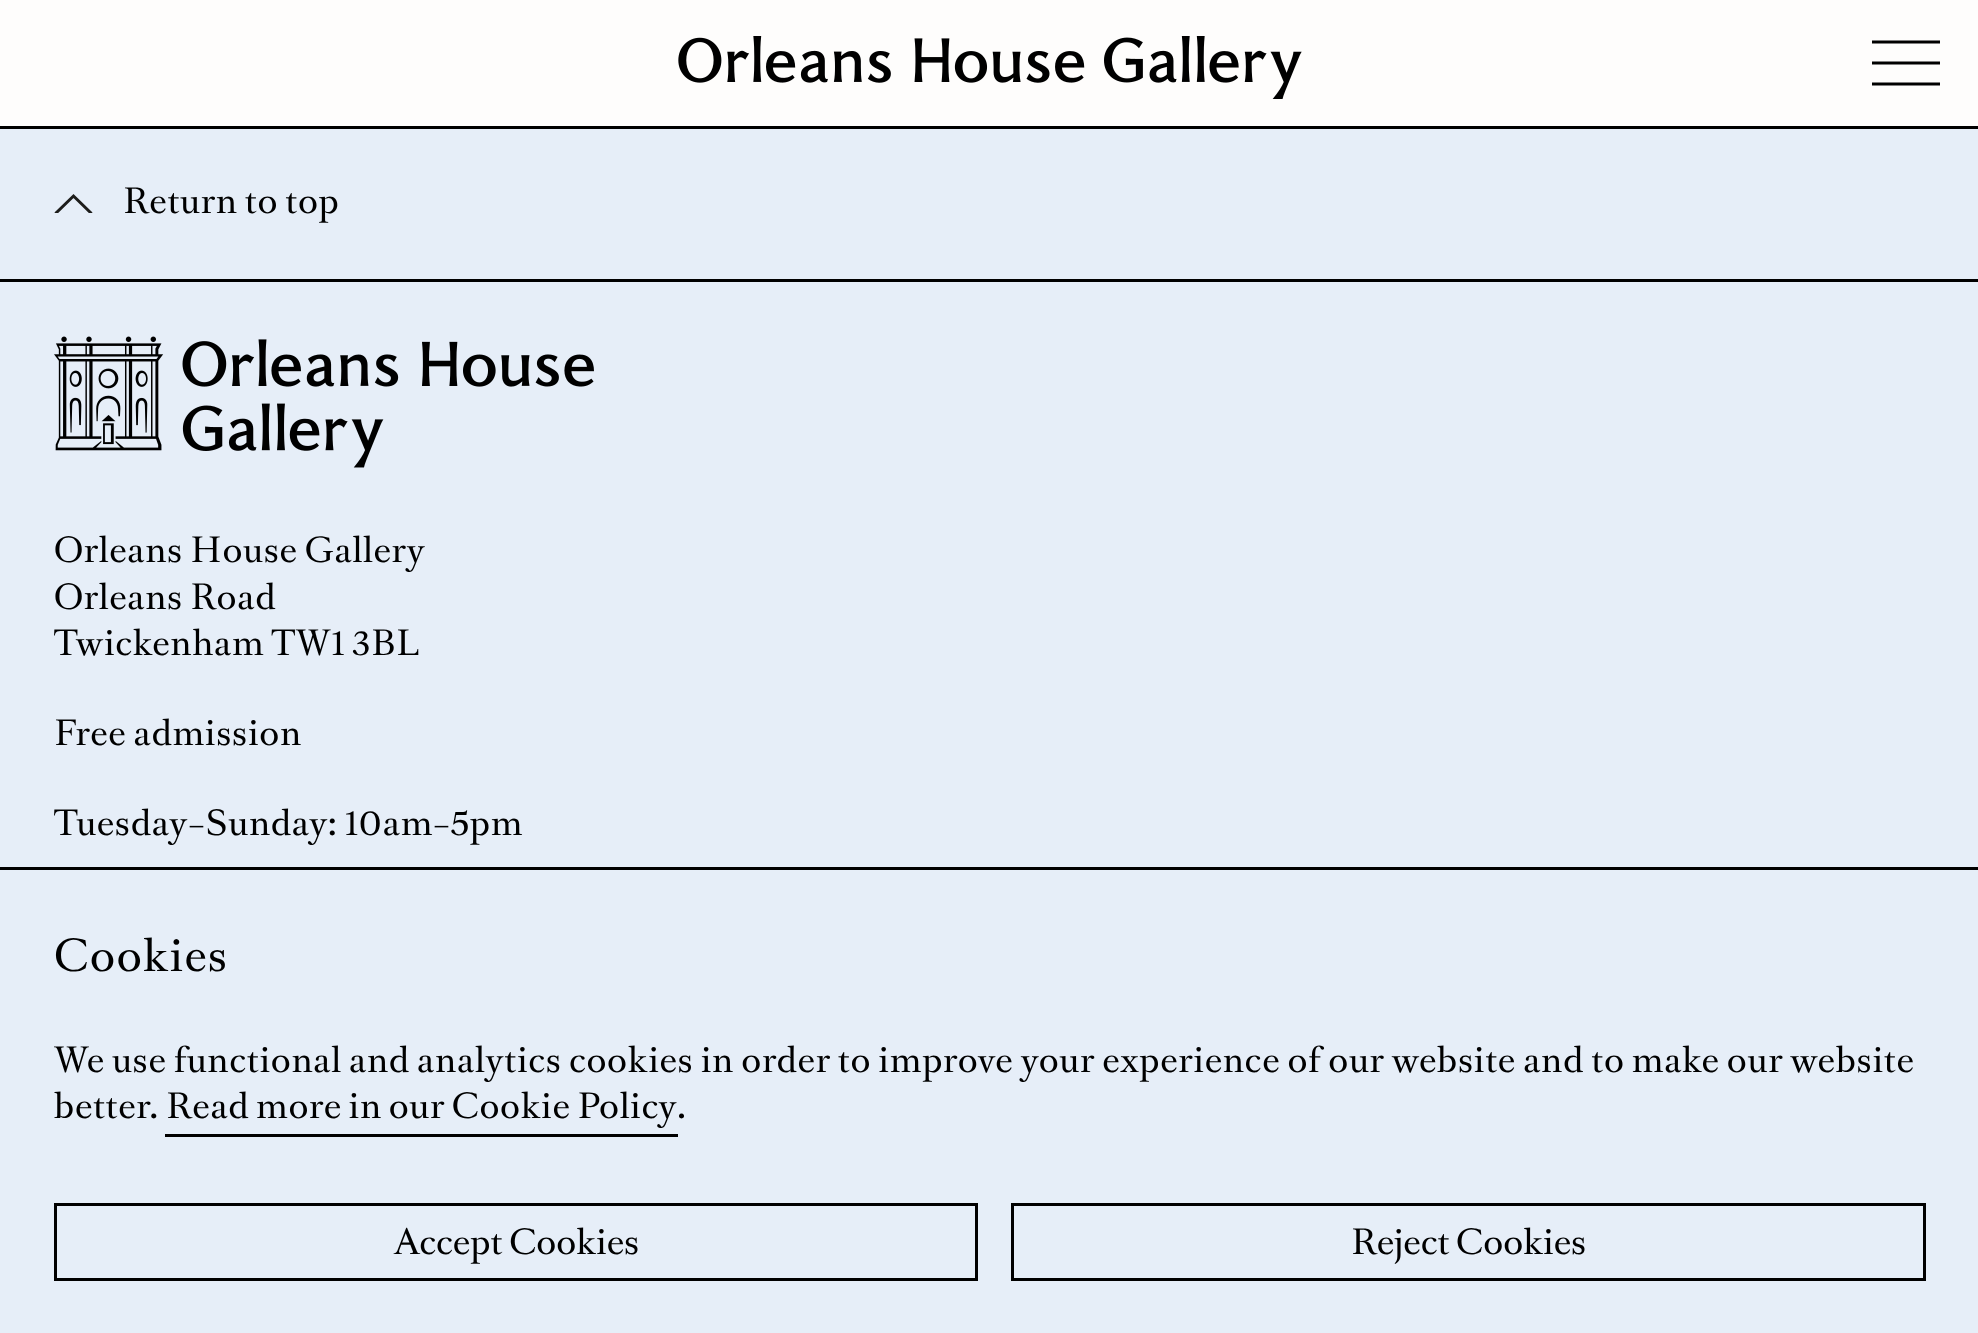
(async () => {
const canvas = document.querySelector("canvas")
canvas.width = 1978
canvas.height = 1333
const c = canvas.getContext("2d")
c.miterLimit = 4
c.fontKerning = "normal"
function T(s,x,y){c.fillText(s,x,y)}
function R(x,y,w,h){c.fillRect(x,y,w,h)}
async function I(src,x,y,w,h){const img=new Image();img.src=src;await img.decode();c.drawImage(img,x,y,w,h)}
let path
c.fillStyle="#e6eef8"
R(0,0,1978,1333)
c.fillStyle="#fefdfc"
R(0,0,1978,126)
c.fillStyle="#000"
R(0,126,1978,3)
await I("1.png",678,36,624,63)
path = new Path2D("M1873.5 42h65m-65 21h65m-65 21h65")
c.strokeStyle="#000"
c.lineWidth=3
c.lineCap="square"
c.stroke(path)
R(0,279,1978,3)
c.save()
c.beginPath()
c.rect(54,192,39,21)
c.clip()
path = new Path2D("M91.5 213.5l-18-17.5l-18 17.5")
c.strokeStyle="#1d1d1b"
c.lineCap="butt"
c.stroke(path)
c.restore()
c.letterSpacing="0.66px"
c.font="33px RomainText"
T("Return to top",123,213)
await I("2.png",54,336,540,132)
T("Orleans House Gallery",54,562)
T("Orleans Road",54,609)
T("Twickenham TW1 3BL",54,655)
T("Free admission",54,745)
T("Tuesday–Sunday: 10am–5pm",54,835)
R(0,867,1978,3)
c.letterSpacing="1.25px"
c.font="42px RomainText"
T("Cookies",54,971)
c.letterSpacing="0.66px"
c.font="33px RomainText"
T("We use functional and analytics cookies in order to improve your experience of our website and to make our website",54,1072)
T("better.",54,1118)
c.wordSpacing="-0.5px"
T("Read more in our Cookie Policy",166,1118)
R(165,1134,513,3)
c.wordSpacing="0px"
T(".",677,1118)
c.strokeRect(55.5,1204.5,921,75)
c.letterSpacing="0px"
T("Accept Cookies",394,1254)
c.strokeRect(1012.5,1204.5,912,75)
T("Reject Cookies",1351,1254)
})()
